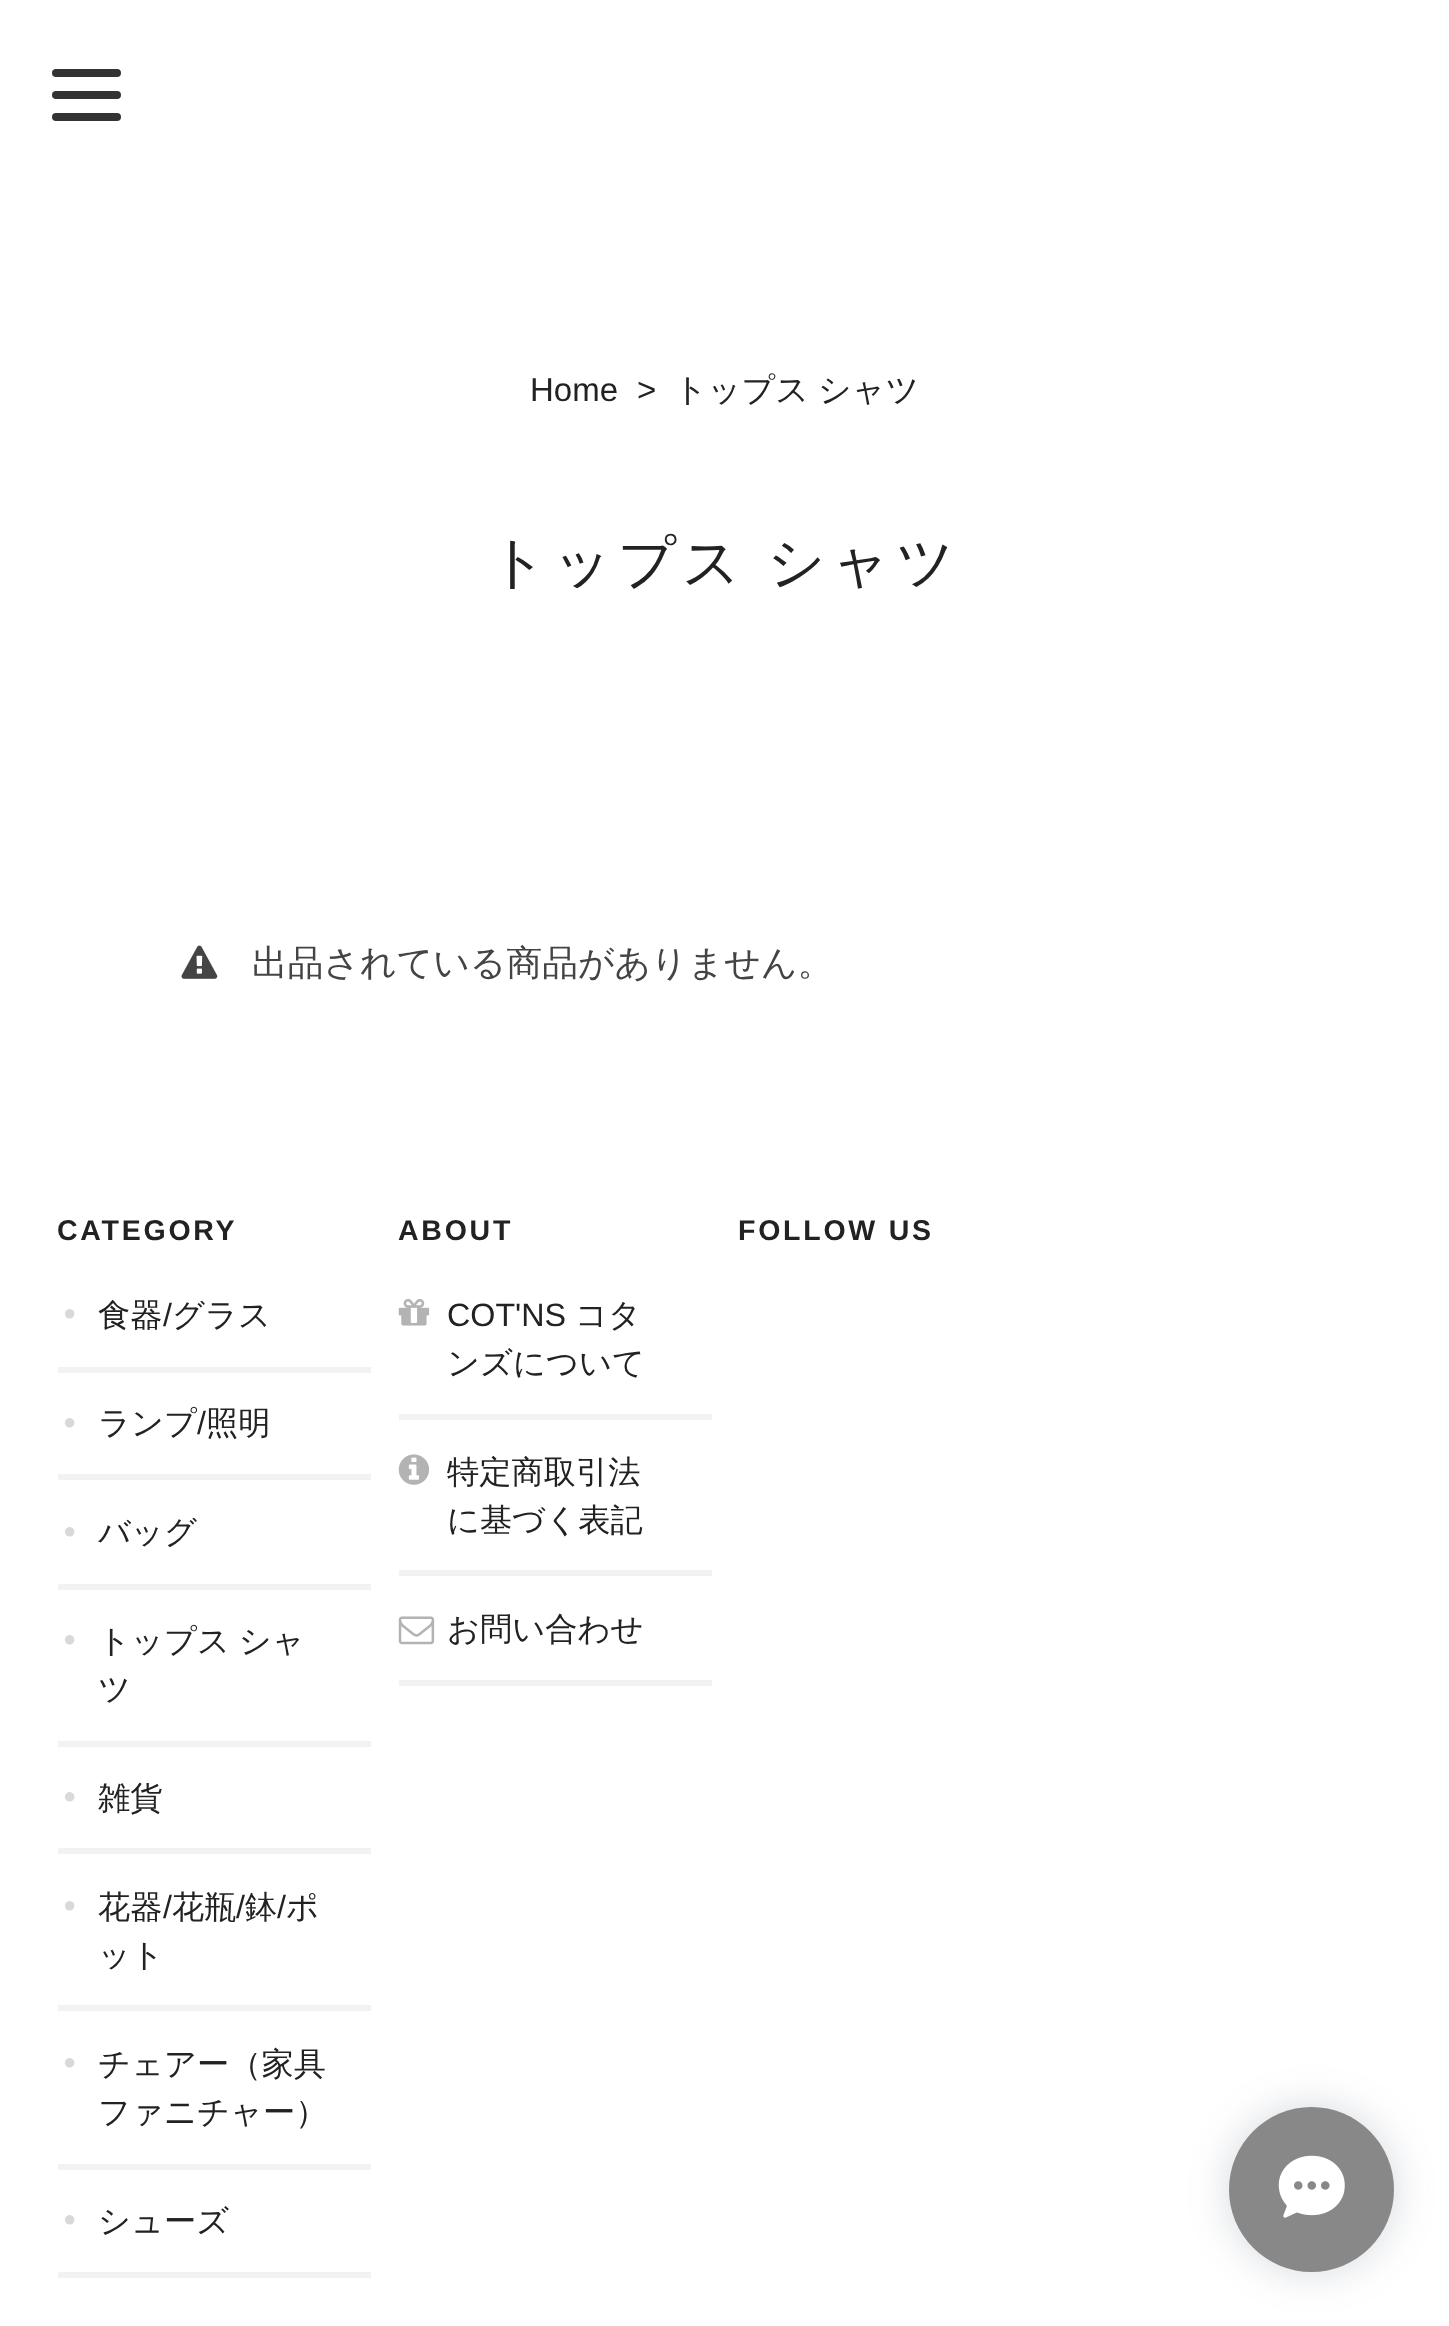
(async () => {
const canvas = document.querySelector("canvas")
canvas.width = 1449
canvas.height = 2326
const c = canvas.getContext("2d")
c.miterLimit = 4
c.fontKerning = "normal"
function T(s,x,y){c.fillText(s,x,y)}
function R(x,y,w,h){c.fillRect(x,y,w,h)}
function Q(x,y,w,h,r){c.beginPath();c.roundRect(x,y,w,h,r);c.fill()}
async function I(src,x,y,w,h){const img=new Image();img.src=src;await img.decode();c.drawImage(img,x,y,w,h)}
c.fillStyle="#fff"
R(0,0,1449,2326)
c.fillStyle="#333"
Q(52,69,69,8,4)
Q(52,91,69,8,4)
Q(52,113,69,8,4)
c.font="33px Liberation Sans"
c.fillStyle="#222"
T("Home",530,401)
T(">",637,401)
c.wordSpacing="-1px"
c.font="500 33px WenQuanYi Zen Hei"
T("トップス シャツ",674,401)
c.letterSpacing="5.75px"
c.wordSpacing="-2px"
c.font="500 57.25px WenQuanYi Zen Hei"
T("トップス シャツ",489,582)
await I("1.png",181,945,37,34)
c.letterSpacing="0px"
c.wordSpacing="0px"
c.font="500 35.75px WenQuanYi Zen Hei"
c.fillStyle="#444"
T("出品されている商品がありません。",252,975)
c.letterSpacing="2.75px"
c.font="bold 28.5px Liberation Sans"
c.fillStyle="#222"
T("CATEGORY",57,1240)
c.fillStyle="#f2f2f2"
R(58,1367,313,6)
c.letterSpacing="0px"
c.font="22px Liberation Sans"
c.fillStyle="#d9d9d9"
T("●",63,1320)
c.font="500 32.25px WenQuanYi Zen Hei"
c.fillStyle="#222"
T("食器",98,1326)
c.font="32.25px Liberation Sans"
T("/",163,1326)
c.font="500 32.25px WenQuanYi Zen Hei"
T("グラス",172,1326)
c.fillStyle="#f2f2f2"
R(58,1474,313,6)
c.font="22px Liberation Sans"
c.fillStyle="#d9d9d9"
T("●",63,1429)
c.font="500 32.25px WenQuanYi Zen Hei"
c.fillStyle="#222"
T("ランプ",98,1434)
c.font="32.25px Liberation Sans"
T("/",197,1434)
c.font="500 32.25px WenQuanYi Zen Hei"
T("照明",206,1434)
c.fillStyle="#f2f2f2"
R(58,1584,313,6)
c.font="22px Liberation Sans"
c.fillStyle="#d9d9d9"
T("●",63,1538)
c.font="500 32.25px WenQuanYi Zen Hei"
c.fillStyle="#222"
T("バッグ",98,1543)
c.fillStyle="#f2f2f2"
R(58,1741,313,6)
c.font="22px Liberation Sans"
c.fillStyle="#d9d9d9"
T("●",63,1646)
c.wordSpacing="-1px"
c.font="500 32.25px WenQuanYi Zen Hei"
c.fillStyle="#222"
T("トップス シャ",98,1652)
c.wordSpacing="0px"
T("ツ",98,1700)
c.fillStyle="#f2f2f2"
R(58,1848,313,6)
c.font="22px Liberation Sans"
c.fillStyle="#d9d9d9"
T("●",63,1803)
c.font="500 32.25px WenQuanYi Zen Hei"
c.fillStyle="#222"
T("雑貨",98,1809)
c.fillStyle="#f2f2f2"
R(58,2005,313,6)
c.font="22px Liberation Sans"
c.fillStyle="#d9d9d9"
T("●",63,1912)
c.font="500 32.25px WenQuanYi Zen Hei"
c.fillStyle="#222"
T("花器",98,1918)
c.font="32.25px Liberation Sans"
T("/",163,1918)
c.font="500 32.25px WenQuanYi Zen Hei"
T("花瓶",172,1918)
c.font="32.25px Liberation Sans"
T("/",236,1918)
c.font="500 32.25px WenQuanYi Zen Hei"
T("鉢",245,1918)
c.font="32.25px Liberation Sans"
T("/",277,1918)
c.font="500 32.25px WenQuanYi Zen Hei"
T("ポ",286,1918)
T("ット",98,1966)
c.fillStyle="#f2f2f2"
R(58,2164,313,6)
c.font="22px Liberation Sans"
c.fillStyle="#d9d9d9"
T("●",63,2069)
c.font="500 32.25px WenQuanYi Zen Hei"
c.fillStyle="#222"
T("チェアー（家具",98,2075)
T("ファニチャー）",98,2123)
c.fillStyle="#f2f2f2"
R(58,2272,313,6)
c.font="22px Liberation Sans"
c.fillStyle="#d9d9d9"
T("●",63,2226)
c.font="500 32.25px WenQuanYi Zen Hei"
c.fillStyle="#222"
T("シューズ",98,2232)
c.letterSpacing="2.75px"
c.font="bold 28.5px Liberation Sans"
T("ABOUT",398,1240)
c.fillStyle="#f2f2f2"
R(399,1414,313,6)
await I("2.png",398,1299,32,27)
c.letterSpacing="0px"
c.font="32.25px Liberation Sans"
c.fillStyle="#222"
T("COT'NS",447,1326)
c.font="500 32.25px WenQuanYi Zen Hei"
T("コタ",575,1326)
T("ンズについて",447,1374)
c.fillStyle="#f2f2f2"
R(399,1570,313,6)
await I("3.png",398,1454,31,31)
c.fillStyle="#222"
T("特定商取引法",447,1483)
T("に基づく表記",447,1531)
c.fillStyle="#f2f2f2"
R(399,1680,313,6)
await I("4.png",398,1616,37,29)
c.fillStyle="#222"
T("お問い合わせ",447,1640)
c.letterSpacing="2.75px"
c.font="bold 28.5px Liberation Sans"
T("FOLLOW US",738,1240)
c.fillStyle="#33425833"
c.filter="blur(20.5px)"
c.beginPath()
c.roundRect(1229,2107,165,165,82.5)
c.fill()
c.filter="none"
c.fillStyle="#888"
c.beginPath()
c.arc(1311.5,2189.5,82.5,0,7)
c.fill()
await I("5.png",1278,2155,67,63)
})()
